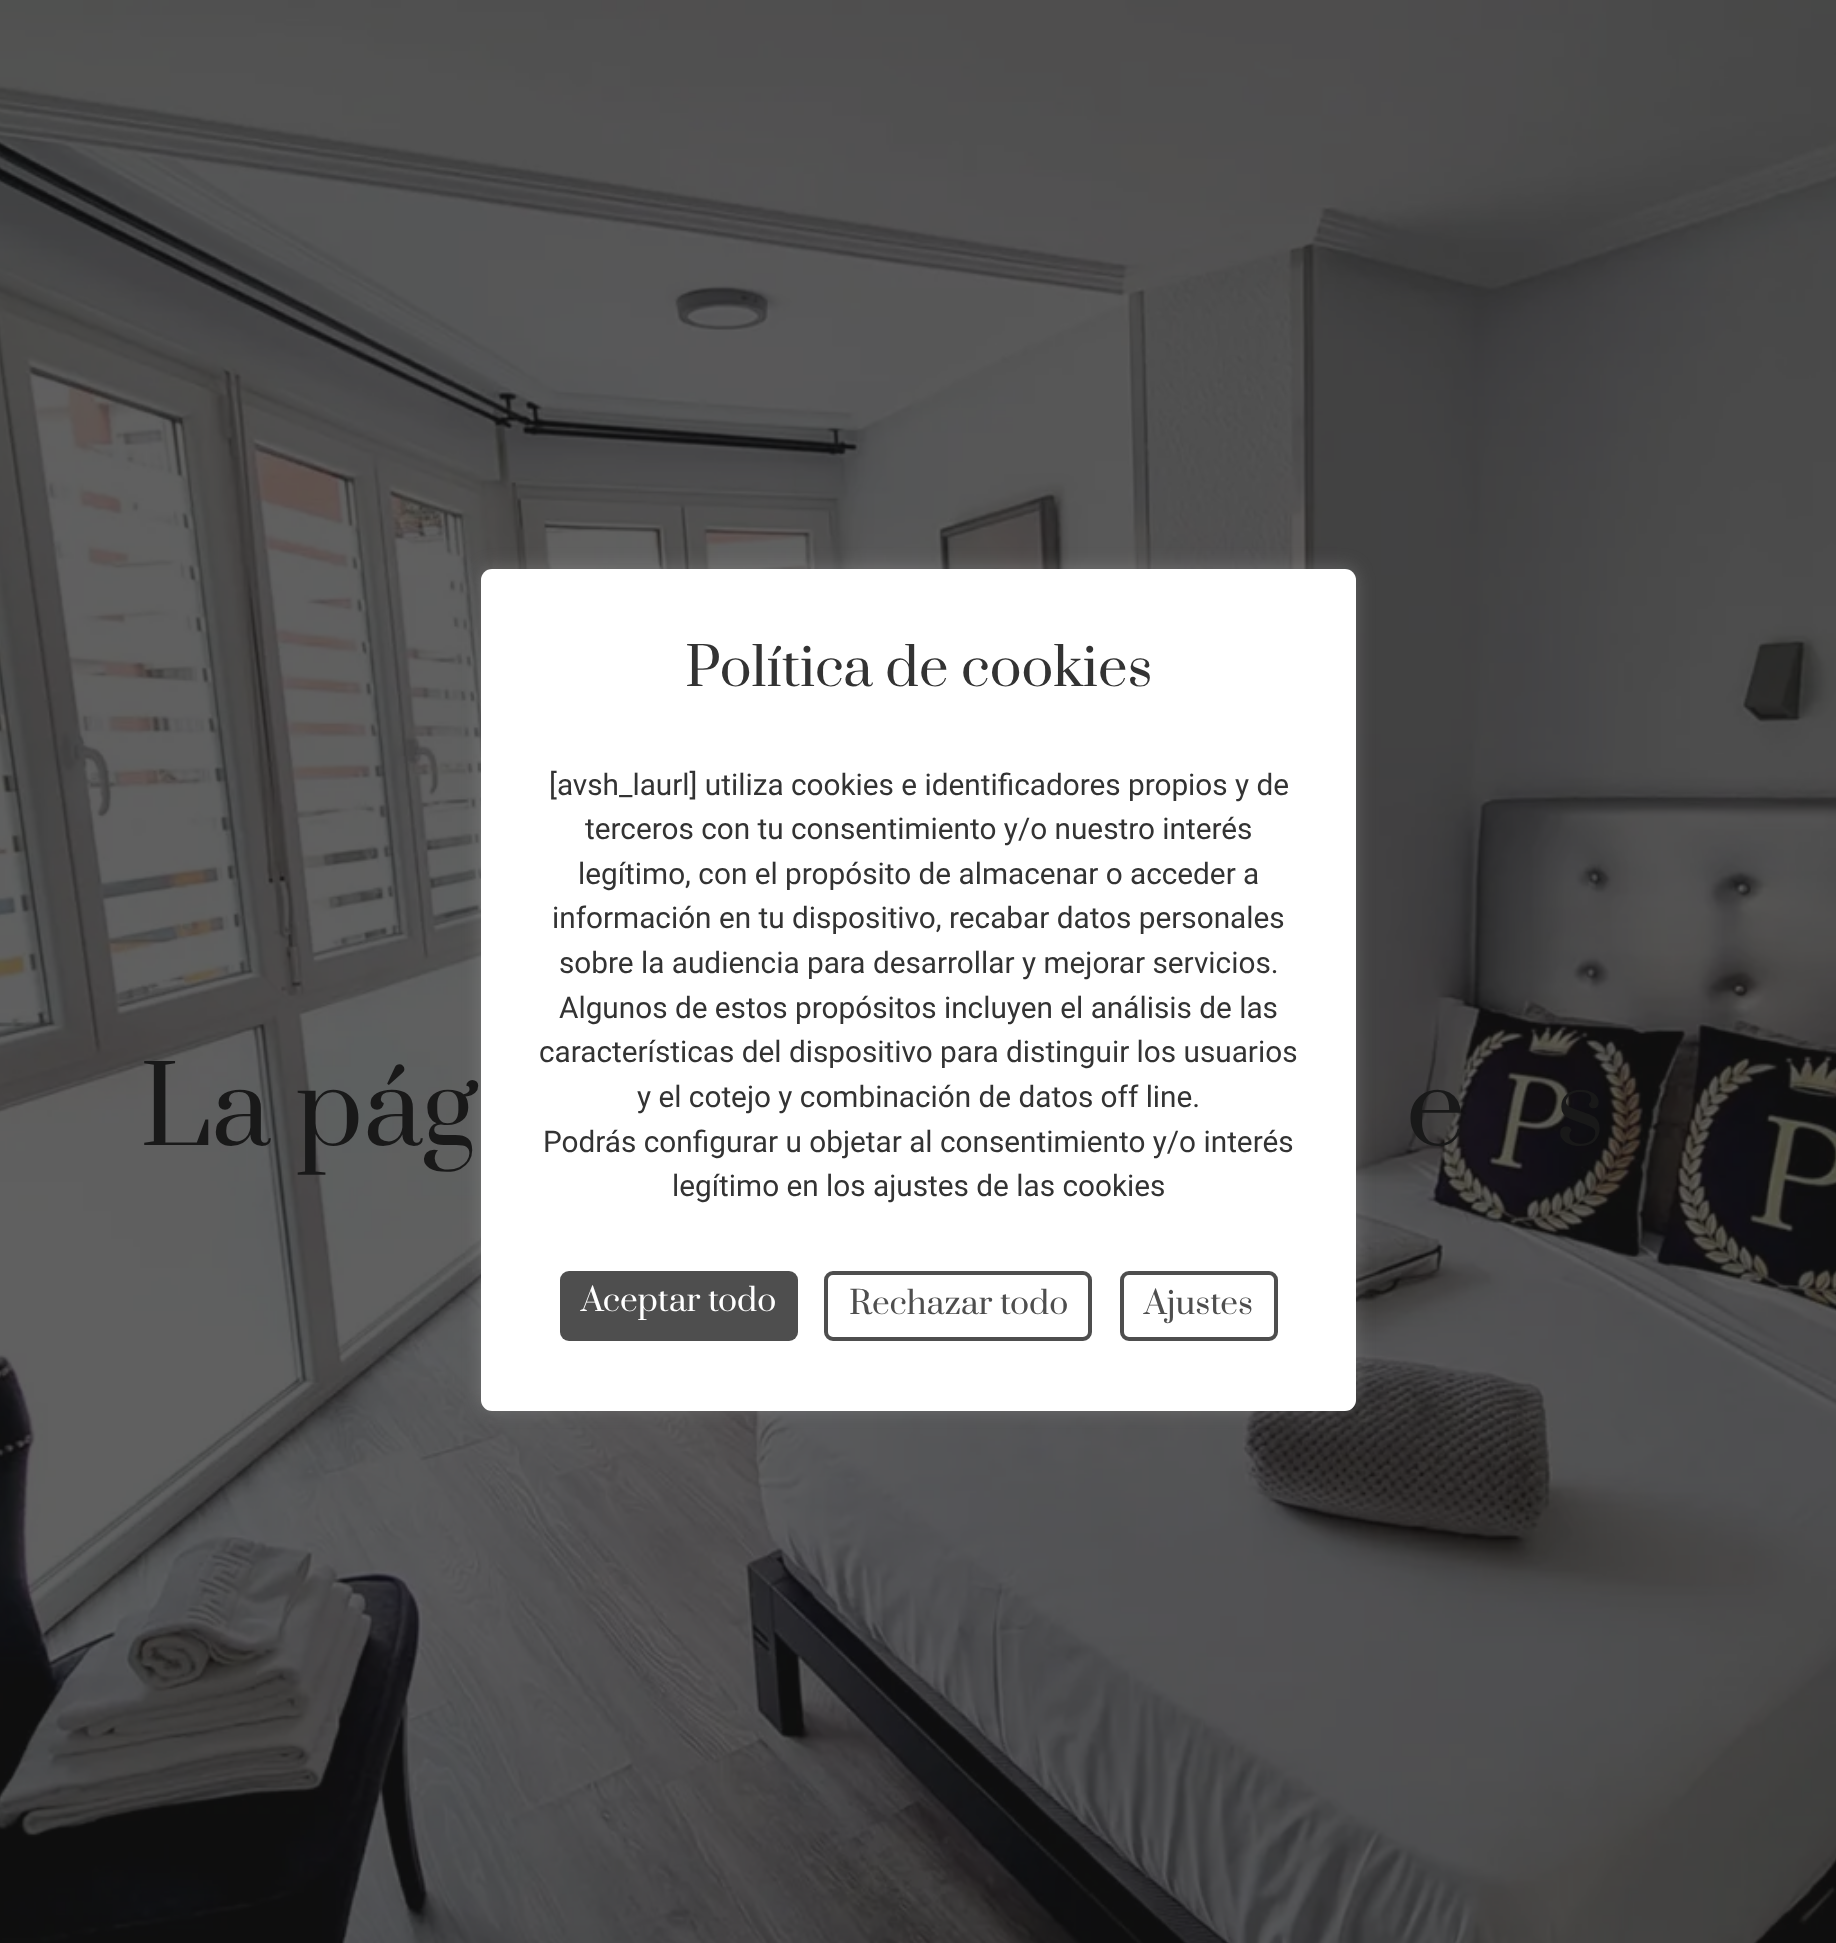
(async () => {
const canvas = document.querySelector("canvas")
canvas.width = 1836
canvas.height = 1943
const c = canvas.getContext("2d")
c.miterLimit = 4
c.fontKerning = "normal"
function T(s,x,y){c.fillText(s,x,y)}
function R(x,y,w,h){c.fillRect(x,y,w,h)}
function Q(x,y,w,h,r){c.beginPath();c.roundRect(x,y,w,h,r);c.fill()}
async function I(src,x,y,w,h){const img=new Image();img.src=src;await img.decode();c.drawImage(img,x,y,w,h)}
c.fillStyle="#fff"
R(0,0,1836,1943)
await I("1.png",0,0,1836,1943)
c.fillStyle="#acabab4d"
c.filter="blur(9px)"
c.beginPath()
c.roundRect(481,567,875,842,11)
c.fill()
c.filter="none"
c.fillStyle="#fff"
Q(481,569,875,842,11)
c.font="52.5px Prata"
c.fillStyle="#333"
T("Política de cookies",685,686)
c.font="29.75px Roboto"
T("[avsh_laurl] utiliza cookies e identificadores propios y de",549,795)
T("terceros con tu consentimiento y/o nuestro interés",585,839)
T("legítimo, con el propósito de almacenar o acceder a",578,884)
T("información en tu dispositivo, recabar datos personales",552,928)
T("sobre la audiencia para desarrollar y mejorar servicios.",559,973)
T("Algunos de estos propósitos incluyen el análisis de las",559,1018)
T("características del dispositivo para distinguir los usuarios",539,1062)
T("y el cotejo y combinación de datos off line.",637,1107)
T("Podrás configurar u objetar al consentimiento y/o interés",543,1152)
T("legítimo en los",672,1196)
T("ajustes de las cookies",873,1196)
c.fillStyle="#4e4e4e"
Q(560,1271,238,70,9)
c.font="31.5px Prata"
c.fillStyle="#fff"
T("Aceptar todo",581,1311)
c.beginPath()
c.roundRect(826,1273,264,66,7)
c.strokeStyle="#4e4e4e"
c.lineWidth=4
c.stroke()
c.fillStyle="#4e4e4e"
T("Rechazar todo",849,1314)
c.beginPath()
c.roundRect(1122,1273,154,66,7)
c.stroke()
T("Ajustes",1144,1314)
c.font="105px Prata"
c.fillStyle="#191919"
T("La pág",140,1145)
T("e",1406,1145)
T("s",1555,1145)
})()
